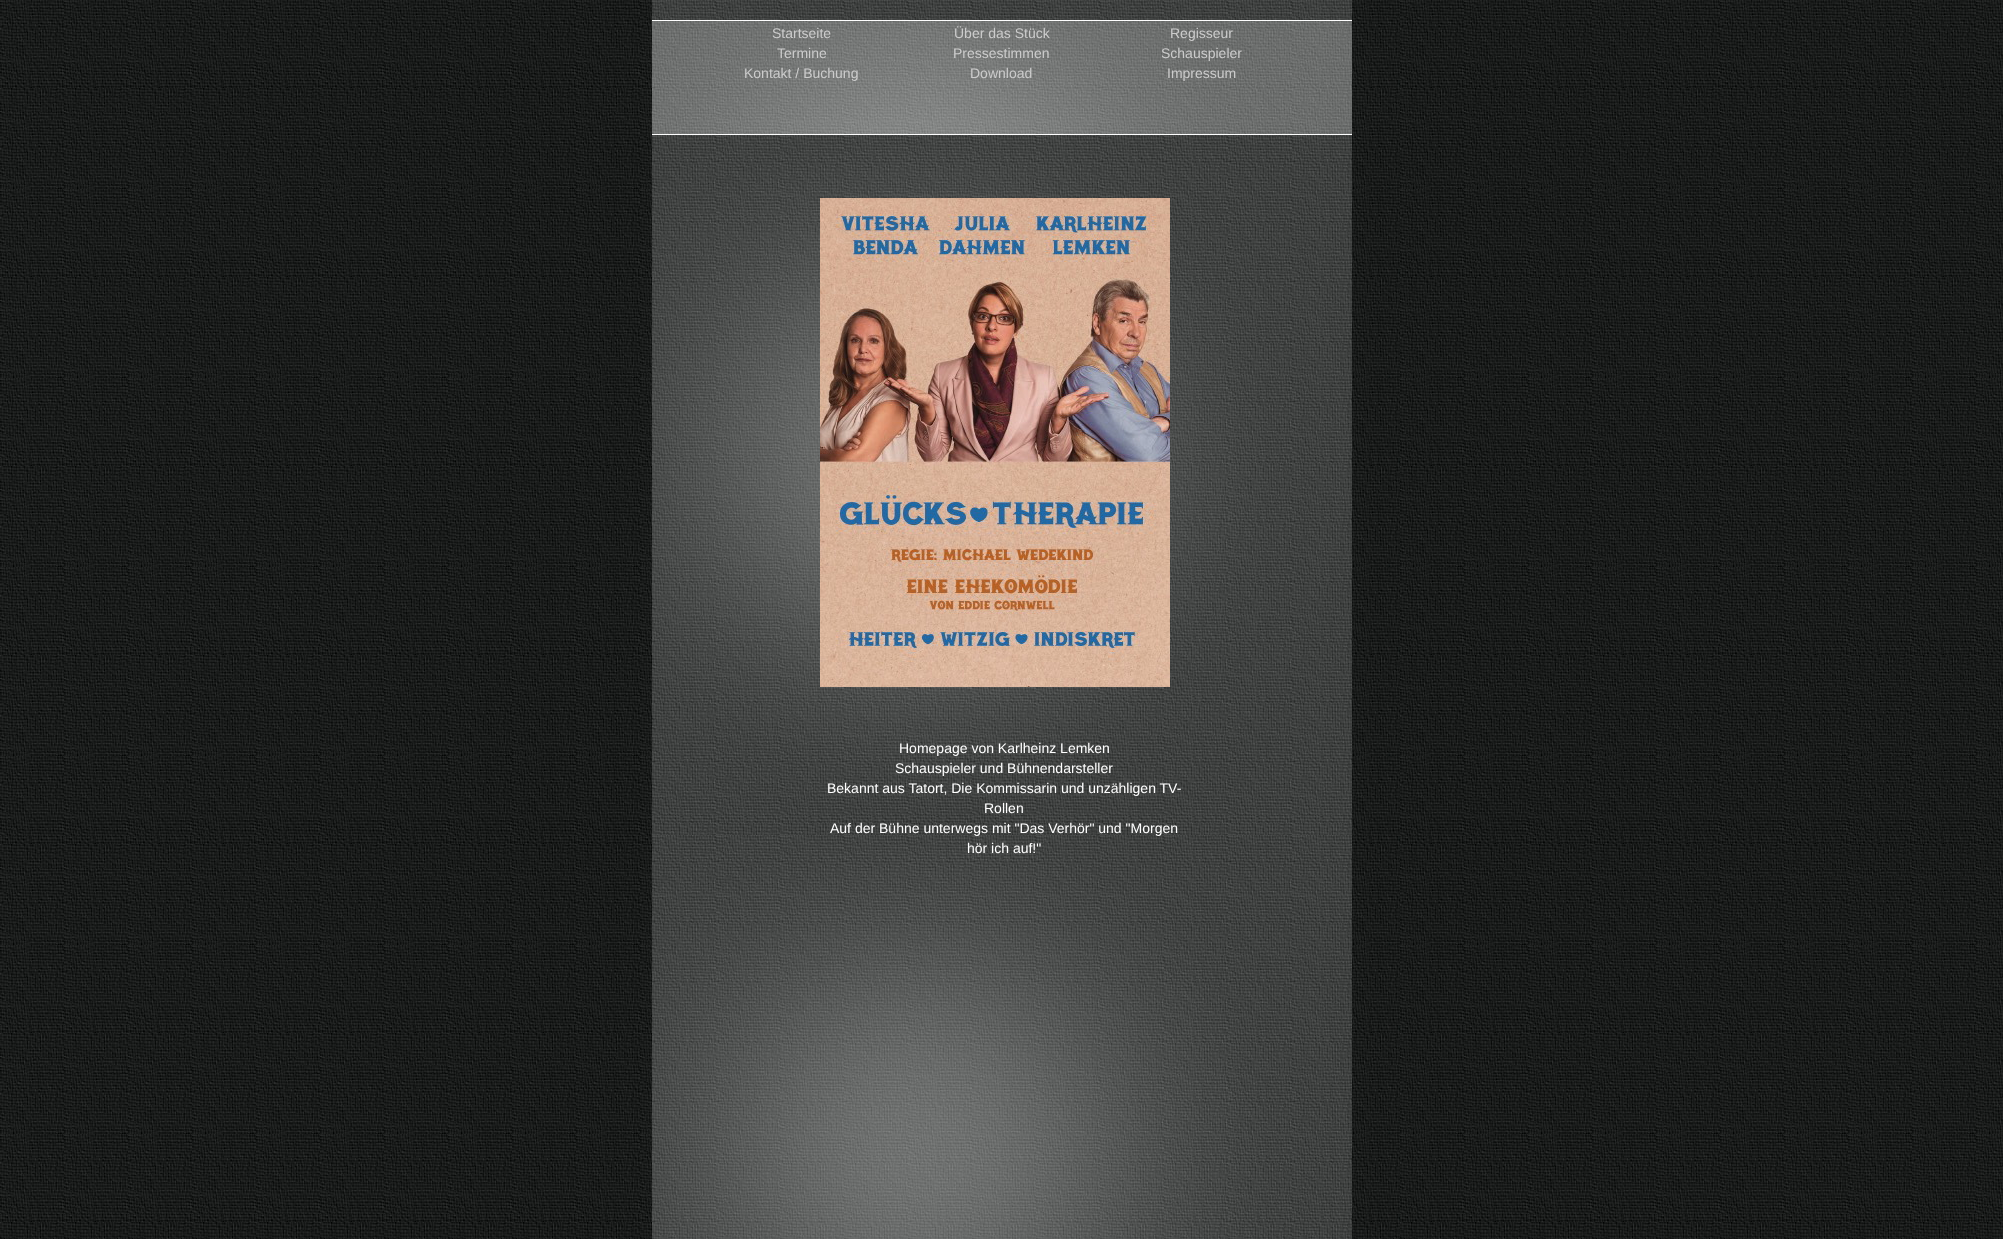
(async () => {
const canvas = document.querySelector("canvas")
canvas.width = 2003
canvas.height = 1239
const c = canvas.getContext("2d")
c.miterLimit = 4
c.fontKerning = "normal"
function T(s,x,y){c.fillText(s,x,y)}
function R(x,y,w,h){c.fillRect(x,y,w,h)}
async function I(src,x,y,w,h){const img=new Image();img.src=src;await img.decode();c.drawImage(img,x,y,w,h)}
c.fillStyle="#fff"
R(0,0,2003,1239)
await I("1.png",0,0,2003,1239)
await I("2.png",652,0,700,20)
await I("3.png",652,21,700,113)
R(652,20,700,1)
R(652,134,700,1)
c.font="14px Liberation Sans"
c.fillStyle="#ccc"
T("Startseite",772,38)
T("Über das Stück",954,38)
T("Regisseur",1170,38)
T("Termine",777,58)
T("Pressestimmen",953,58)
T("Schauspieler",1161,58)
T("Kontakt / Buchung",744,78)
T("Download",970,78)
T("Impressum",1167,78)
await I("4.png",652,135,700,1104)
await I("5.png",820,198,350,489)
c.fillStyle="#fff"
T("Homepage von Karlheinz Lemken",899,753)
T("Schauspieler und Bühnendarsteller",895,773)
T("Bekannt aus Tatort, Die Kommissarin und unzähligen TV-",827,793)
T("Rollen",984,813)
T("Auf der Bühne unterwegs mit \"Das Verhör\" und \"Morgen",830,833)
T("hör ich auf!\"",967,853)
})()
